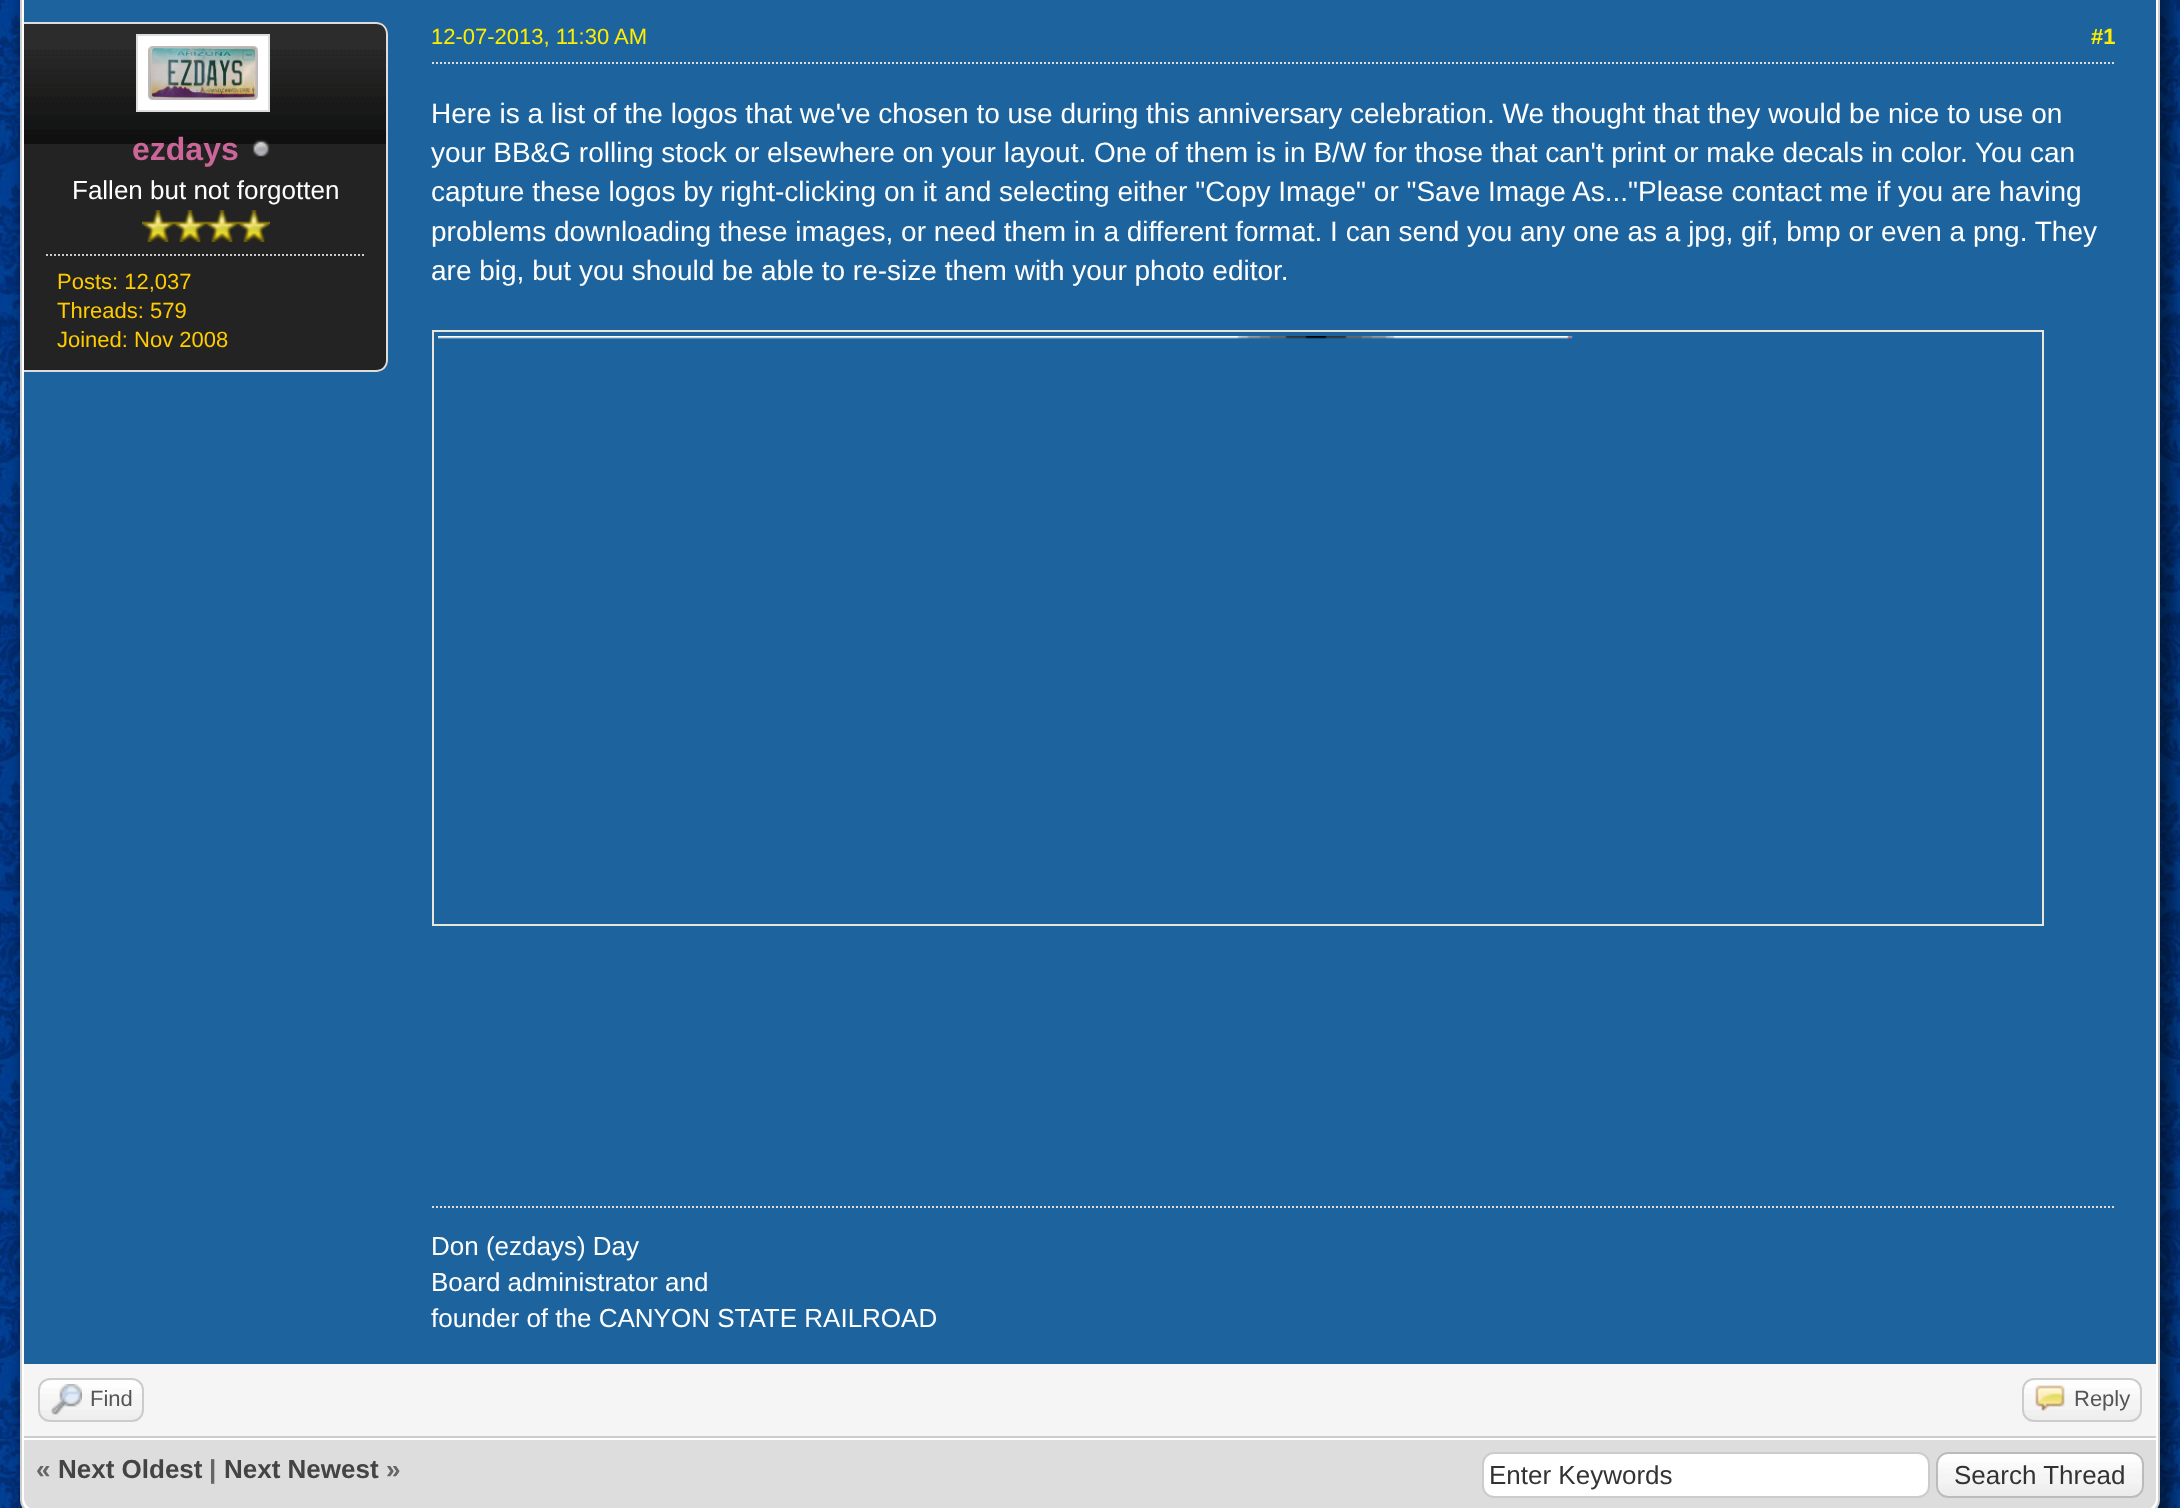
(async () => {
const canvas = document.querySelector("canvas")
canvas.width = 2180
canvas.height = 1508
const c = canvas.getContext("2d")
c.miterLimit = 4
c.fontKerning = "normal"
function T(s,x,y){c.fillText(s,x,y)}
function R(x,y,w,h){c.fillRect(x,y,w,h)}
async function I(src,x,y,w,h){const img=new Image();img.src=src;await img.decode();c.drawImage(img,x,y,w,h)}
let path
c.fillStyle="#fff"
R(0,0,2180,1508)
await I("1.png",0,0,2180,1508)
c.fillStyle="#00000075"
c.filter="blur(7px)"
c.beginPath()
c.roundRect(22,-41,2152,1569,20)
c.fill()
c.filter="none"
c.fillStyle="#fff"
c.beginPath()
c.roundRect(21,-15,2138,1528,13)
c.fill()
c.strokeStyle="#ccc"
c.lineWidth=2
c.stroke()
c.fillStyle="#1d649f"
R(24,0,2132,1364)
c.fillStyle="#232323"
c.beginPath()
c.roundRect(24,22,364,350,[0,12,12,0])
c.fill()
await I("2.png",24,24,364,120)
c.fillStyle="#ddd"
path = new Path2D("M24 22h352c7 0 12 5 12 12v326c0 7-5 12-12 12h-352zm0 2h352c6 0 10 4 10 10v326c0 6-4 10-10 10h-352z")
c.fill(path,"evenodd")
c.fillStyle="#fff"
c.beginPath()
c.rect(137,35,132,76)
c.fill()
c.strokeStyle="#ddd"
c.stroke()
await I("3.png",148,46,110,54)
c.font="bold 32px Liberation Sans"
c.fillStyle="#c69"
T("ezdays",132,160)
await I("4.png",252,139,18,19)
c.font="26px Liberation Sans"
c.fillStyle="#fff"
T("Fallen but not forgotten",72,199)
await I("5.png",142,210,32,32)
await I("5.png",174,210,32,32)
await I("5.png",206,210,32,32)
await I("5.png",238,210,32,32)
path = new Path2D("M46 255h320")
c.strokeStyle="#ccc"
c.setLineDash([2,2])
c.stroke(path)
c.font="22px Liberation Sans"
c.fillStyle="#fc0"
T("Posts: 12,037",57,289)
T("Threads: 579",57,318)
T("Joined: Nov 2008",57,347)
path = new Path2D("M432 63h1684")
c.strokeStyle="#ddd"
c.stroke(path)
c.fillStyle="#ffed00"
T("12-07-2013, 11:30 AM",431,44)
c.font="bold 22px Liberation Sans"
T("#1",2091,44)
c.font="28px Liberation Sans"
c.fillStyle="#fff"
T("Here is a list of the logos that we've chosen to use during this anniversary celebration. We thought that they would be nice to use on",431,123)
T("your BB&G rolling stock or elsewhere on your layout. One of them is in B/W for those that can't print or make decals in color. You can",431,162)
T("capture these logos by right-clicking on it and selecting either \"Copy Image\" or \"Save Image As...\"Please contact me if you are having",431,201)
T("problems downloading these images, or need them in a different format. I can send you any one as a jpg, gif, bmp or even a png. They",431,241)
T("are big, but you should be able to re-size them with your photo editor.",431,280)
c.strokeStyle="#e9e5d7"
c.setLineDash([])
c.strokeRect(433,331,1610,594)
await I("6.png",438,336,1135,3)
path = new Path2D("M432 1207h1684")
c.strokeStyle="#ddd"
c.setLineDash([2,2])
c.stroke(path)
c.font="26px Liberation Sans"
T("Don (ezdays) Day",431,1255)
T("Board administrator and",431,1291)
T("founder of the CANYON STATE RAILROAD",431,1327)
c.fillStyle="#f5f5f5"
R(24,1364,2132,72)
c.fillStyle="#ccc"
R(24,1436,2132,2)
await I("7.png",38,1380,106,41)
c.beginPath()
c.roundRect(39,1379,104,42,11)
c.strokeStyle="#ccc"
c.setLineDash([])
c.stroke()
await I("8.png",51,1384,31,31)
c.font="22px Liberation Sans"
c.fillStyle="#555"
T("Find",90,1406)
await I("9.png",2022,1380,120,41)
c.beginPath()
c.roundRect(2023,1379,118,42,11)
c.stroke()
await I("10.png",2035,1385,30,26)
T("Reply",2074,1406)
c.fillStyle="#ddd"
path = new Path2D("M24 1438h2132v60c0 6.5-5.5 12-12 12h-2108c-6.5 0-12-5.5-12-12z")
c.fill(path)
c.fillStyle="#fff"
R(24,1438,2132,2)
c.font="bold 26px Liberation Sans"
c.fillStyle="#666"
T("«",36,1478)
c.fillStyle="#444"
T("Next Oldest",58,1478)
c.fillStyle="#666"
T("|",209,1478)
c.fillStyle="#444"
T("Next Newest",224,1478)
c.fillStyle="#666"
T("»",386,1478)
c.fillStyle="#fff"
c.beginPath()
c.roundRect(1483,1453,446,44,11)
c.fill()
c.stroke()
c.font="26px Liberation Sans"
c.fillStyle="#333"
T("Enter Keywords",1489,1484)
await I("11.png",1936,1454,208,44)
c.beginPath()
c.roundRect(1937,1453,206,44,11)
c.strokeStyle="#bbb"
c.stroke()
T("Search Thread",1954,1484)
})()
